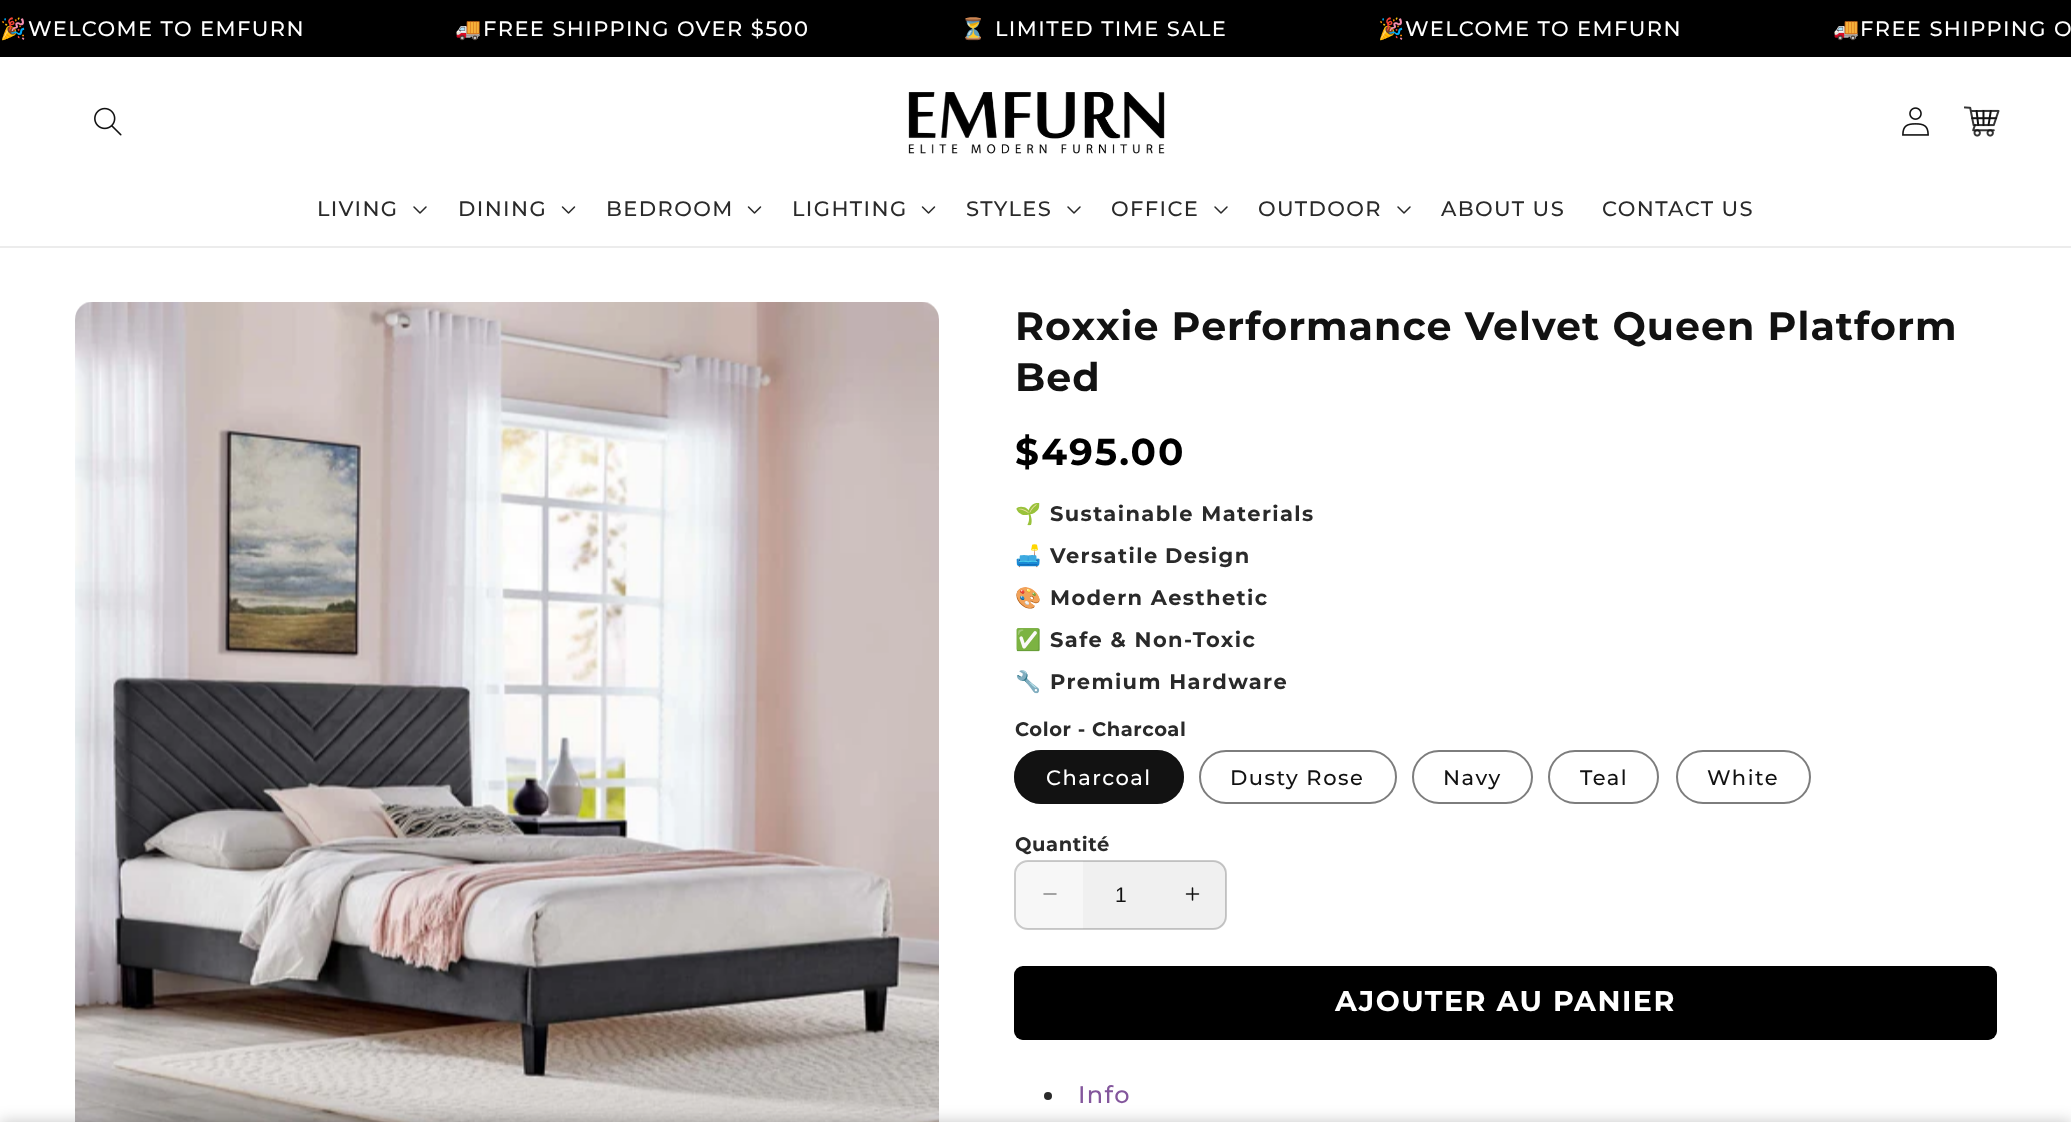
(async () => {
const canvas = document.querySelector("canvas")
canvas.width = 2071
canvas.height = 1122
const c = canvas.getContext("2d")
c.miterLimit = 4
c.fontKerning = "normal"
function T(s,x,y){c.fillText(s,x,y)}
function R(x,y,w,h){c.fillRect(x,y,w,h)}
function Q(x,y,w,h,r){c.beginPath();c.roundRect(x,y,w,h,r);c.fill()}
async function I(src,x,y,w,h){const img=new Image();img.src=src;await img.decode();c.drawImage(img,x,y,w,h)}
c.fillStyle="#fff"
R(0,0,2071,1122)
c.fillStyle="#000"
R(0,0,2071,57)
c.letterSpacing="1.4px"
c.font="21px Noto Color Emoji"
c.fillStyle="#fff"
T("🎉",0,36)
c.font="500 21px Montserrat"
T("WELCOME TO EMFURN",28,36)
c.font="21px Noto Color Emoji"
T("🚚",455,36)
c.font="500 21px Montserrat"
T("FREE SHIPPING OVER $500",483,36)
c.font="21px Noto Color Emoji"
T("⏳",960,36)
c.font="500 21px Montserrat"
T("LIMITED TIME SALE",995,36)
c.font="21px Noto Color Emoji"
T("🎉",1378,36)
c.font="500 21px Montserrat"
T("WELCOME TO EMFURN",1405,36)
c.font="21px Noto Color Emoji"
T("🚚",1833,36)
c.font="500 21px Montserrat"
T("FREE SHIPPING O",1860,36)
c.fillStyle="#ececec"
R(0,246,2071,2)
await I("1.png",94,107,28,29)
await I("2.png",908,92,257,62)
await I("3.png",1902,107,27,29)
await I("4.png",1964,106,36,31)
c.fillStyle="#2a2a2a"
T("LIVING",317,216)
await I("5.png",413,206,14,8)
T("DINING",458,216)
await I("6.png",561,206,15,8)
T("BEDROOM",606,216)
await I("6.png",747,206,15,8)
T("LIGHTING",792,216)
await I("6.png",921,206,15,8)
T("STYLES",966,216)
await I("5.png",1067,206,14,8)
T("OFFICE",1111,216)
await I("5.png",1214,206,14,8)
T("OUTDOOR",1258,216)
await I("5.png",1397,206,14,8)
T("ABOUT US",1441,216)
T("CONTACT US",1602,216)
await I("7.png",75,302,864,820)
c.letterSpacing="1px"
c.font="bold 39.6px Montserrat"
c.fillStyle="#121212"
T("Roxxie Performance Velvet Queen Platform",1015,340)
T("Bed",1015,391)
c.letterSpacing="2px"
c.font="bold 37.5px Montserrat"
c.fillStyle="#000"
T("$495.00",1015,465)
c.letterSpacing="1.4px"
c.font="bold 21px Noto Color Emoji"
c.fillStyle="#2a2a2a"
T("🌱",1015,521)
c.font="bold 21px Montserrat"
T("Sustainable Materials",1050,521)
c.font="bold 21px Noto Color Emoji"
T("🛋️",1015,563)
c.wordSpacing="-1px"
c.font="bold 21px Montserrat"
T("Versatile Design",1050,563)
c.wordSpacing="0px"
c.font="bold 21px Noto Color Emoji"
T("🎨",1015,605)
c.font="bold 21px Montserrat"
T("Modern Aesthetic",1050,605)
c.font="bold 21px Noto Color Emoji"
T("✅",1015,647)
c.font="bold 21px Montserrat"
T("Safe & Non-Toxic",1050,647)
c.font="bold 21px Noto Color Emoji"
T("🔧",1015,689)
c.font="bold 21px Montserrat"
T("Premium Hardware",1050,689)
c.letterSpacing="0.6px"
c.font="bold 19.5px Montserrat"
T("Color - Charcoal",1015,736)
c.fillStyle="#121212"
Q(1014,750,170,54,27)
c.beginPath()
c.roundRect(1015,751,168,52,26)
c.strokeStyle="#1212128c"
c.lineWidth=2
c.stroke()
c.letterSpacing="1.5px"
c.font="500 21px Montserrat"
c.fillStyle="#fff"
T("Charcoal",1046,785)
c.beginPath()
c.roundRect(1200,751,196,52,26)
c.strokeStyle="#7d7d7d"
c.stroke()
c.fillStyle="#121212"
T("Dusty Rose",1230,785)
c.beginPath()
c.roundRect(1413,751,119,52,26)
c.stroke()
T("Navy",1443,785)
c.beginPath()
c.roundRect(1549,751,109,52,26)
c.stroke()
T("Teal",1580,785)
c.beginPath()
c.roundRect(1677,751,133,52,26)
c.stroke()
T("White",1707,785)
c.letterSpacing="0.6px"
c.font="bold 19.5px Montserrat"
c.fillStyle="#2a2a2a"
T("Quantité",1015,851)
c.fillStyle="#f7f7f7"
c.beginPath()
c.roundRect(1016,861,67,68,[12,0,0,12])
c.fill()
await I("8.png",1043,893,14,2)
c.fillStyle="#f0f0f0"
R(1083,861,75,68)
c.beginPath()
c.roundRect(1158,861,68,68,[0,12,12,0])
c.fill()
await I("9.png",1185,887,15,14)
c.beginPath()
c.roundRect(1015,861,211,68,13)
c.strokeStyle="#00000033"
c.stroke()
c.letterSpacing="0px"
c.font="21px Liberation Sans"
c.fillStyle="#121212"
T("1",1115,902)
c.beginPath()
c.roundRect(1015.5,967.5,980,71,10.5)
c.strokeStyle="#000"
c.lineWidth=3
c.stroke()
c.fillStyle="#000"
Q(1014,966,983,74,9)
c.letterSpacing="1.5px"
c.font="bold 28.5px Montserrat"
c.fillStyle="#fff"
T("AJOUTER AU PANIER",1335,1011)
c.fillStyle="#2a2a2a"
c.beginPath()
c.arc(1048,1096,4,0,7)
c.fill()
c.letterSpacing="1.4px"
c.font="500 24px Montserrat"
c.fillStyle="#83569c"
T("Info",1078,1103)
c.fillStyle="#00000033"
c.filter="blur(7.5px)"
c.beginPath()
c.rect(0,1121,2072,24)
c.fill()
c.filter="none"
})()
